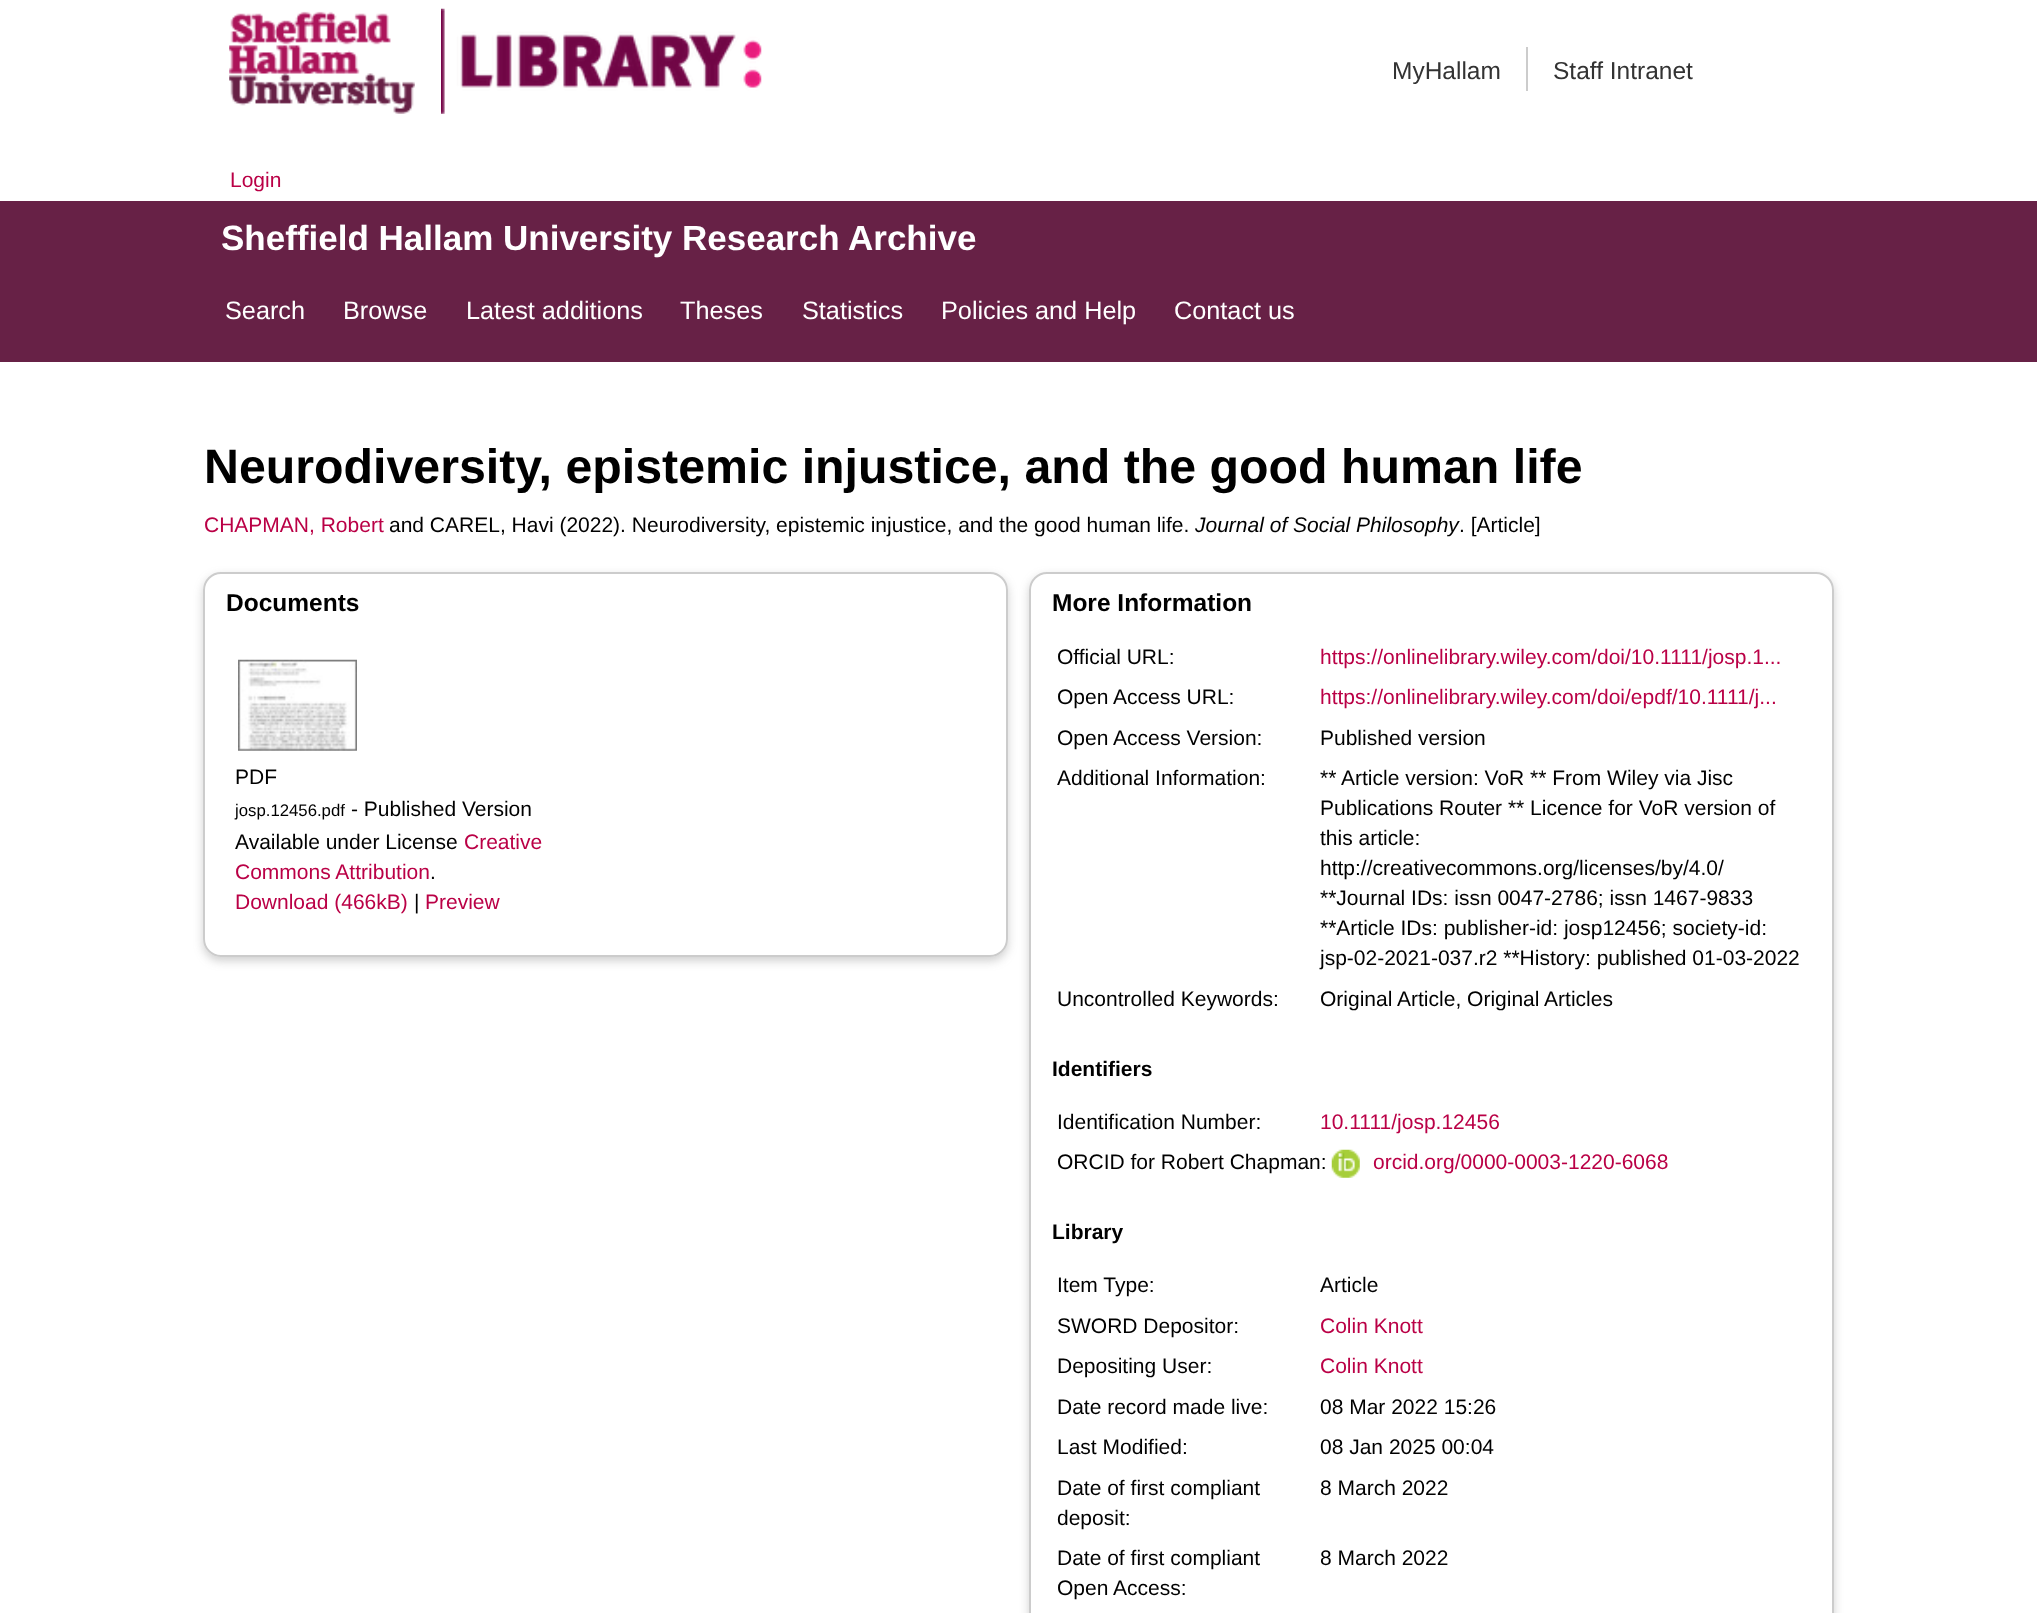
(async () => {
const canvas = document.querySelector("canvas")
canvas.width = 2037
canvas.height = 1613
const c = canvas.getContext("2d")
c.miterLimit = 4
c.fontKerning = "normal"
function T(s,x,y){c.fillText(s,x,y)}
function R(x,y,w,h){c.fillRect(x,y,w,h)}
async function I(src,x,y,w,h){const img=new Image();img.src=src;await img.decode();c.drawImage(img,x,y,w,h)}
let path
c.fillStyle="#fff"
R(0,0,2037,1613)
await I("1.png",229,11,186,103)
await I("2.png",441,8,321,106)
c.font="24.5px Liberation Sans"
c.fillStyle="#333"
T("MyHallam",1392,79)
c.fillStyle="#ccc"
R(1526,47,2,44)
c.fillStyle="#333"
T("Staff Intranet",1553,79)
c.font="21px Liberation Sans"
c.fillStyle="#ba0046"
T("Login",230,187)
c.fillStyle="#672146"
R(0,201,2037,161)
c.font="bold 35px Liberation Sans"
c.fillStyle="#fff"
T("Sheffield Hallam University Research Archive",221,250)
c.font="25.25px Liberation Sans"
T("Search",225,319)
T("Browse",343,319)
T("Latest additions",466,319)
T("Theses",680,319)
T("Statistics",802,319)
T("Policies and Help",941,319)
T("Contact us",1174,319)
c.font="bold 48.3px Liberation Sans"
c.fillStyle="#000"
T("Neurodiversity, epistemic injustice, and the good human life",204,483)
c.font="21px Liberation Sans"
c.fillStyle="#ba0046"
T("CHAPMAN, Robert",204,532)
c.fillStyle="#000"
T("and CAREL, Havi (2022). Neurodiversity, epistemic injustice, and the good human life.",389,532)
c.font="italic 21px Liberation Sans"
T("Journal of Social Philosophy",1195,532)
c.font="21px Liberation Sans"
T(". [Article]",1459,532)
c.save()
path = new Path2D("M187 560h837v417h-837zm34 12h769c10 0 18 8 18 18v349c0 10-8 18-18 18h-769c-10 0-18-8-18-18v-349c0-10 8-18 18-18z")
c.clip(path,"evenodd")
c.fillStyle="#6464644d"
c.filter="blur(5px)"
c.beginPath()
c.roundRect(203,576,805,385,18)
c.fill()
c.filter="none"
c.restore()
c.beginPath()
c.roundRect(204,573,803,383,17)
c.strokeStyle="#ccc"
c.lineWidth=2
c.stroke()
c.font="bold 24.5px Liberation Sans"
T("Documents",226,611)
await I("3.png",238,659,119,92)
c.font="21px Liberation Sans"
T("PDF",235,784)
c.font="16.75px Liberation Sans"
T("josp.12456.pdf",235,816)
c.font="21px Liberation Sans"
T("- Published Version",351,816)
T("Available under License",235,849)
c.fillStyle="#ba0046"
T("Creative",464,849)
T("Commons Attribution",235,879)
c.fillStyle="#000"
T(".",430,879)
c.fillStyle="#ba0046"
T("Download (466kB)",235,909)
c.fillStyle="#000"
T("|",414,909)
c.fillStyle="#ba0046"
T("Preview",425,909)
c.save()
path = new Path2D("M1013 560h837v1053h-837zm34 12h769c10 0 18 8 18 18v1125c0 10-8 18-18 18h-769c-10 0-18-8-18-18v-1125c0-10 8-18 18-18z")
c.clip(path,"evenodd")
c.fillStyle="#6464644d"
c.filter="blur(5px)"
c.beginPath()
c.roundRect(1029,576,805,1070,18)
c.fill()
c.filter="none"
c.restore()
c.beginPath()
c.roundRect(1030,573,803,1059,17)
c.stroke()
c.font="bold 24.5px Liberation Sans"
c.fillStyle="#000"
T("More Information",1052,611)
c.font="21px Liberation Sans"
T("Official URL:",1057,664)
c.fillStyle="#ba0046"
T("https://onlinelibrary.wiley.com/doi/10.1111/josp.1...",1320,664)
c.fillStyle="#000"
T("Open Access URL:",1057,704)
c.fillStyle="#ba0046"
T("https://onlinelibrary.wiley.com/doi/epdf/10.1111/j...",1320,704)
c.fillStyle="#000"
T("Open Access Version:",1057,745)
T("Published version",1320,745)
T("Additional Information:",1057,785)
T("** Article version: VoR ** From Wiley via Jisc",1320,785)
T("Publications Router ** Licence for VoR version of",1320,815)
T("this article:",1320,845)
T("http://creativecommons.org/licenses/by/4.0/",1320,875)
T("**Journal IDs: issn 0047-2786; issn 1467-9833",1320,905)
T("**Article IDs: publisher-id: josp12456; society-id:",1320,935)
T("jsp-02-2021-037.r2 **History: published 01-03-2022",1320,965)
T("Uncontrolled Keywords:",1057,1006)
T("Original Article, Original Articles",1320,1006)
c.font="bold 21px Liberation Sans"
T("Identifiers",1052,1076)
c.font="21px Liberation Sans"
T("Identification Number:",1057,1129)
c.fillStyle="#ba0046"
T("10.1111/josp.12456",1320,1129)
c.fillStyle="#000"
T("ORCID for Robert Chapman:",1057,1169)
await I("4.png",1331,1149,29,29)
c.fillStyle="#ba0046"
T("orcid.org/0000-0003-1220-6068",1373,1169)
c.font="bold 21px Liberation Sans"
c.fillStyle="#000"
T("Library",1052,1239)
c.font="21px Liberation Sans"
T("Item Type:",1057,1292)
T("Article",1320,1292)
T("SWORD Depositor:",1057,1333)
c.fillStyle="#ba0046"
T("Colin Knott",1320,1333)
c.fillStyle="#000"
T("Depositing User:",1057,1373)
c.fillStyle="#ba0046"
T("Colin Knott",1320,1373)
c.fillStyle="#000"
T("Date record made live:",1057,1414)
T("08 Mar 2022 15:26",1320,1414)
T("Last Modified:",1057,1454)
T("08 Jan 2025 00:04",1320,1454)
T("Date of first compliant",1057,1495)
T("deposit:",1057,1525)
T("8 March 2022",1320,1495)
T("Date of first compliant",1057,1565)
T("Open Access:",1057,1595)
T("8 March 2022",1320,1565)
})()
